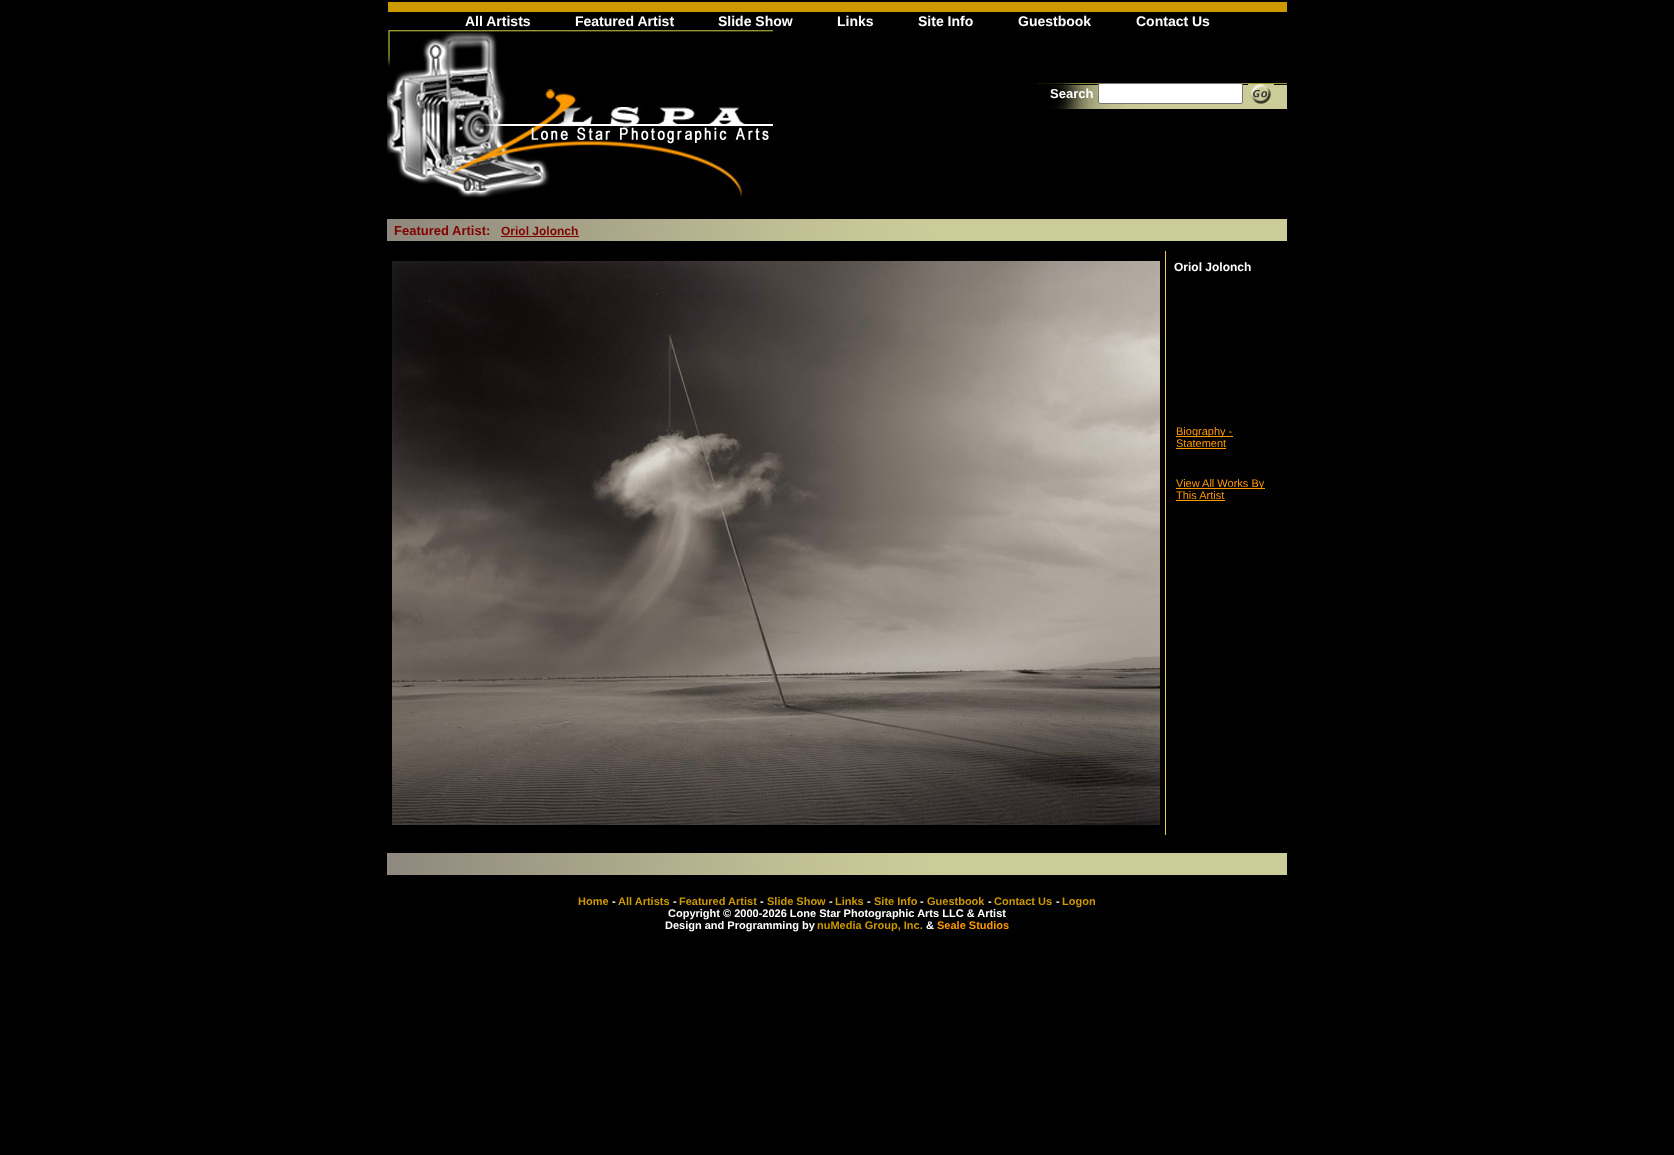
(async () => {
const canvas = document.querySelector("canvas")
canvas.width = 1674
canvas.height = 1155
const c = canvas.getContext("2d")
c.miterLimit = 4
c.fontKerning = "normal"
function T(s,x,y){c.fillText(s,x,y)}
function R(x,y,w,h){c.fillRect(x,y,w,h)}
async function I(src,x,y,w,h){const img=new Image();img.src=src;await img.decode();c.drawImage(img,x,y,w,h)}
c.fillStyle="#000"
R(0,0,1674,1155)
c.fillStyle="#c90"
R(388,2,899,10)
c.font="bold 14px Liberation Sans"
c.fillStyle="#fff"
T("All Artists",465,26)
T("Featured Artist",575,26)
T("Slide Show",718,26)
T("Links",837,26)
T("Site Info",918,26)
T("Guestbook",1018,26)
T("Contact Us",1136,26)
await I("1.png",387,30,386,168)
await I("2.png",1037,83,250,26)
c.font="bold 13px Liberation Sans"
T("Search",1050,98)
c.beginPath()
c.roundRect(1098.5,83.5,144,20,1.5)
c.fill()
c.strokeStyle="#767676"
c.stroke()
await I("3.png",1248,84,26,20)
await I("4.png",387,219,650,22)
c.fillStyle="#800000"
T("Featured Artist:",394,235)
c.font="bold 12px Liberation Sans"
T("Oriol Jolonch",501,235)
R(501,236,78,1)
c.fillStyle="#cc9"
R(1037,219,250,22)
await I("5.png",392,261,768,564)
await I("6.png",1165,251,1,584)
c.fillStyle="#fff"
T("Oriol Jolonch",1174,271)
c.fillStyle="#f90"
R(1176,436,57,1)
c.font="11px Liberation Sans"
T("Biography -",1176,435)
T("Statement",1176,447)
R(1176,448,50,1)
R(1176,488,89,1)
T("View All Works By",1176,487)
T("This Artist",1176,499)
R(1176,500,49,1)
await I("7.png",387,853,612,22)
c.fillStyle="#cc9"
R(999,853,288,22)
c.font="bold 11px Liberation Sans"
c.fillStyle="#c90"
T("Home",578,905)
c.fillStyle="#fff"
T("-",612,905)
c.fillStyle="#c90"
T("All Artists",618,905)
c.fillStyle="#fff"
T("-",673,905)
c.fillStyle="#c90"
T("Featured Artist",679,905)
c.fillStyle="#fff"
T("-",760,905)
c.fillStyle="#c90"
T("Slide Show",767,905)
c.fillStyle="#fff"
T("-",829,905)
c.fillStyle="#c90"
T("Links",835,905)
c.fillStyle="#fff"
T("-",867,905)
c.fillStyle="#c90"
T("Site Info",874,905)
c.fillStyle="#fff"
T("-",920,905)
c.fillStyle="#c90"
T("Guestbook",927,905)
c.fillStyle="#fff"
T("-",988,905)
c.fillStyle="#c90"
T("Contact Us",994,905)
c.fillStyle="#fff"
T("-",1056,905)
c.fillStyle="#c90"
T("Logon",1062,905)
c.fillStyle="#fff"
T("Copyright © 2000-2026 Lone Star Photographic Arts LLC & Artist",668,917)
T("Design and Programming by",665,929)
c.fillStyle="#c90"
T("nuMedia Group, Inc.",817,929)
c.fillStyle="#fff"
T("&",926,929)
c.fillStyle="#f90"
T("Seale Studios",937,929)
})()
